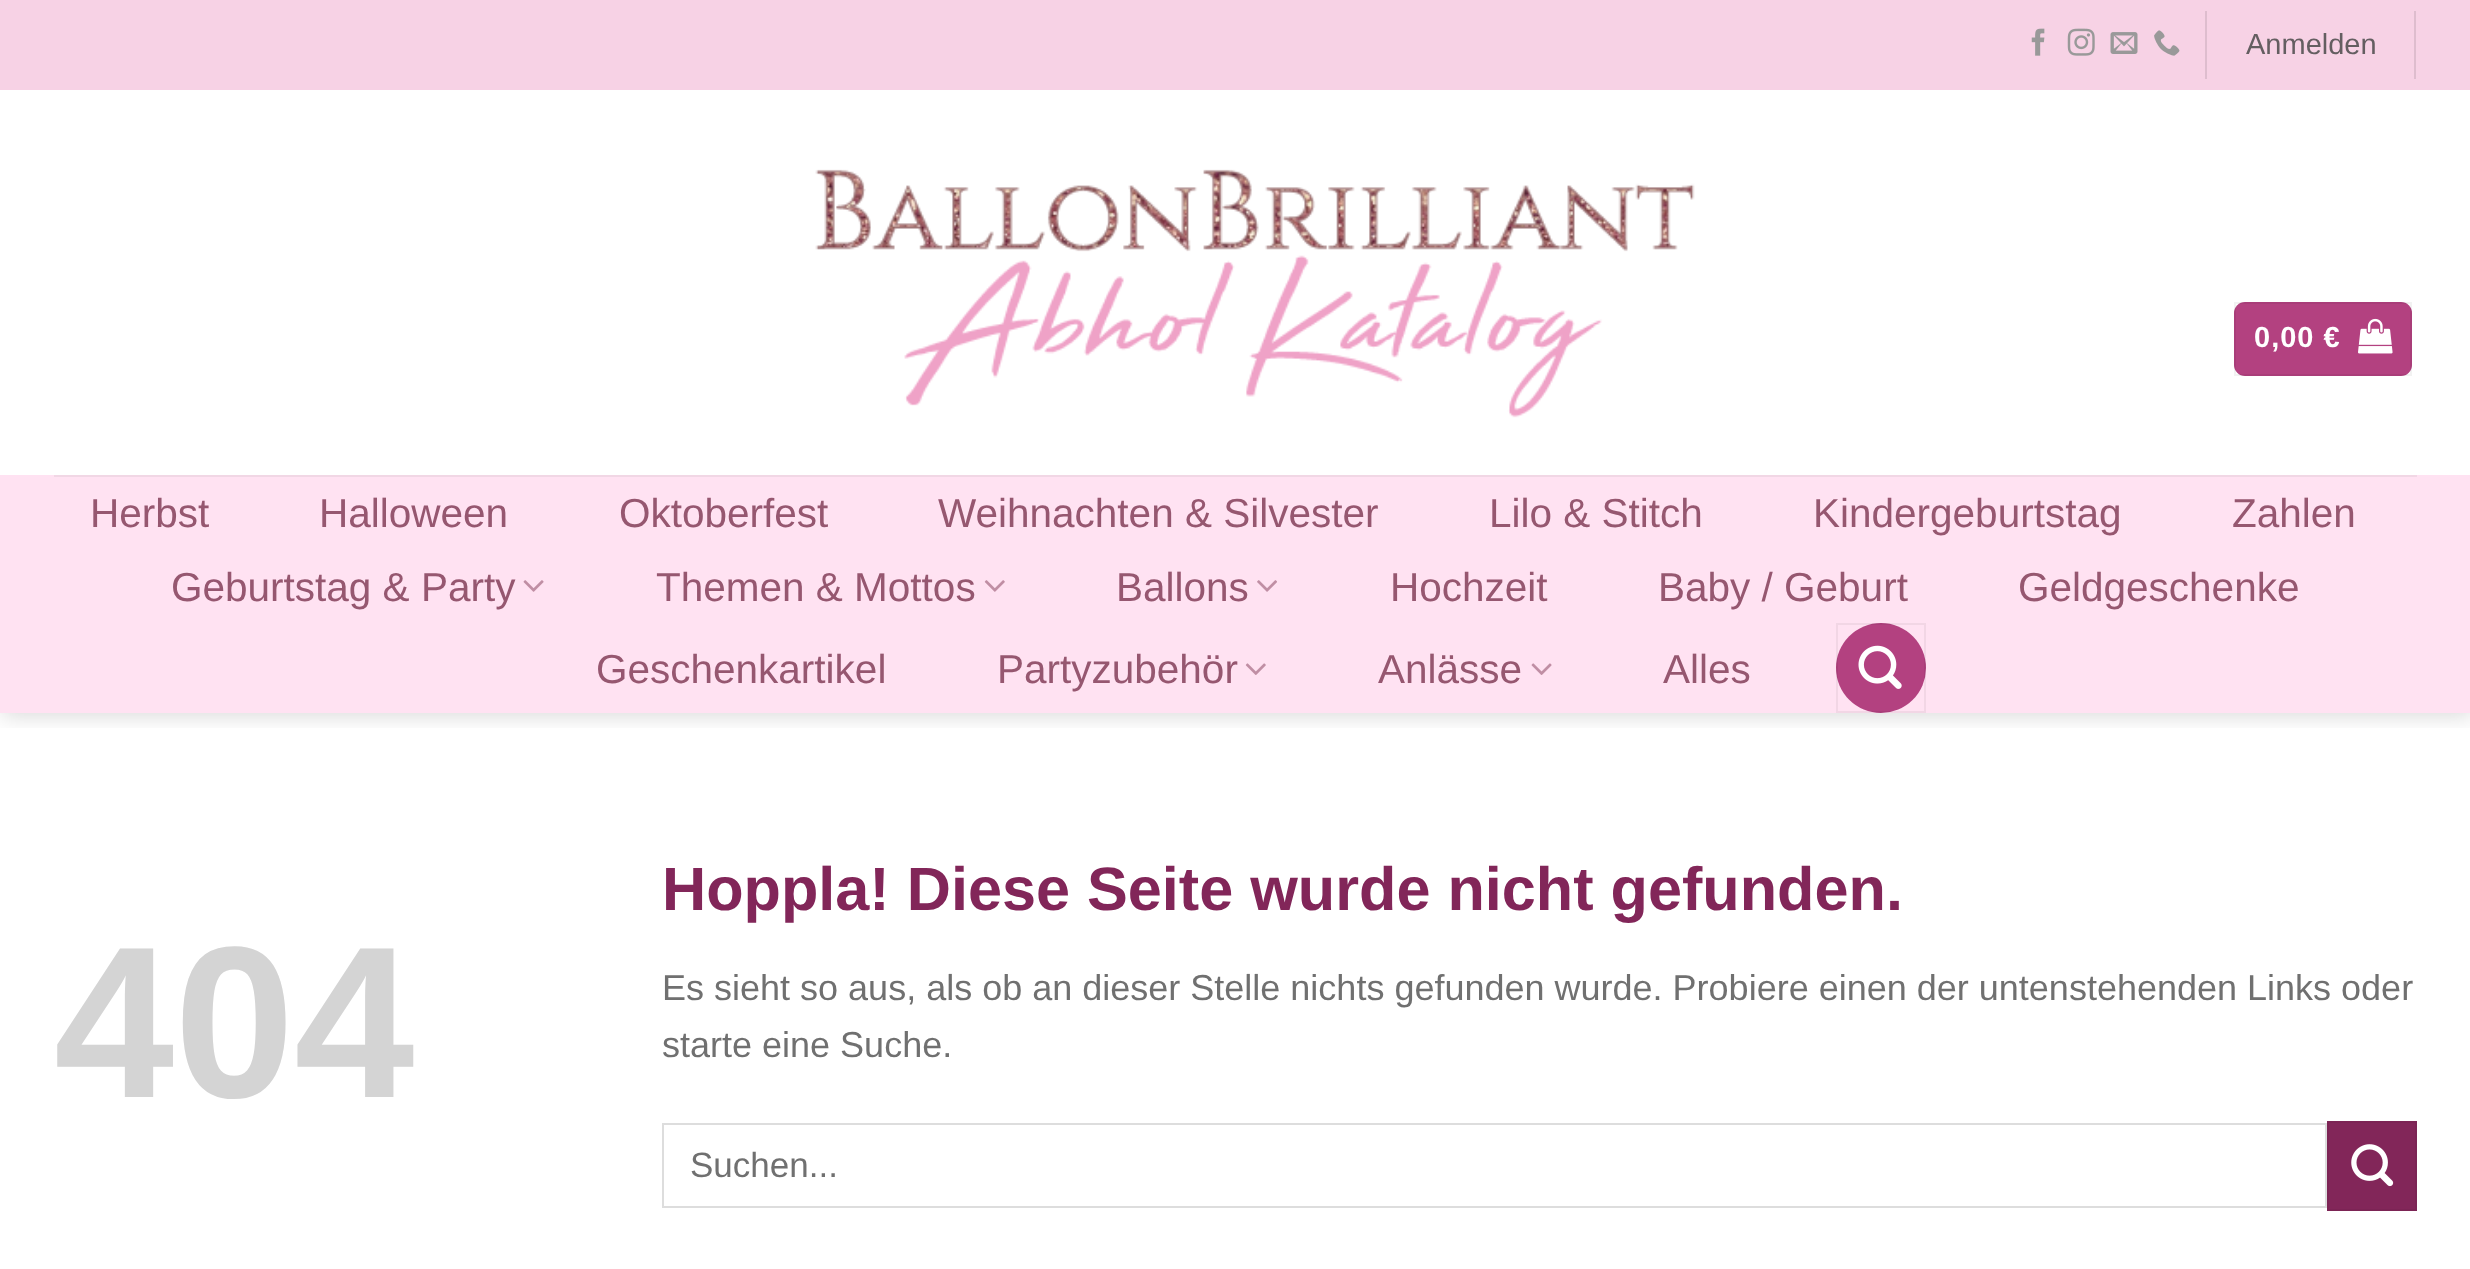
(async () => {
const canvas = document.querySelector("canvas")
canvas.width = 2470
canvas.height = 1269
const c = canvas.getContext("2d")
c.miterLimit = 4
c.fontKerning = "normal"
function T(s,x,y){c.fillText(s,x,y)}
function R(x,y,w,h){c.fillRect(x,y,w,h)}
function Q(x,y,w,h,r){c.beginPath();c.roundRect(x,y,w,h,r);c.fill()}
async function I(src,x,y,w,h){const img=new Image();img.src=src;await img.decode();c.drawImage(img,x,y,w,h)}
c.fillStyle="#fff"
R(0,0,2470,1269)
c.save()
c.beginPath()
c.rect(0,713,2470,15)
c.clip()
c.fillStyle="#00000026"
c.filter="blur(11px)"
c.beginPath()
c.rect(2,2,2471,714)
c.fill()
c.filter="none"
c.restore()
c.fillStyle="#f7d2e5"
R(0,0,2470,90)
await I("1.png",2031,28,14,28)
await I("2.png",2067,28,28,28)
await I("3.png",2110,32,28,22)
await I("4.png",2154,30,26,26)
c.fillStyle="#debdce"
R(2205,11,2,68)
c.font="29px Liberation Sans"
c.fillStyle="#645e61"
T("Anmelden",2246,54)
c.fillStyle="#debdce"
R(2414,11,2,68)
await I("5.png",815,169,880,249)
c.fillStyle="#b34180"
Q(2234,302,178,74,11)
c.strokeStyle="#0000000d"
c.lineWidth=2
c.strokeRect(2235,303,176,72)
c.letterSpacing="1px"
c.font="bold 29px Liberation Sans"
c.fillStyle="#fff"
T("0,00 €",2254,347)
await I("6.png",2358,318,35,36)
c.fillStyle="#ffe2f2"
R(0,475,2470,238)
c.fillStyle="#f1d7e5"
R(54,475,2363,2)
c.letterSpacing="0px"
c.font="40.5px Liberation Sans"
c.fillStyle="#965770"
T("Herbst",90,527)
T("Halloween",319,527)
T("Oktoberfest",619,527)
T("Weihnachten & Silvester",938,527)
T("Lilo & Stitch",1489,527)
T("Kindergeburtstag",1813,527)
T("Zahlen",2232,527)
T("Geburtstag & Party",171,601)
await I("7.png",523,580,21,12)
T("Themen & Mottos",656,601)
await I("8.png",984,580,21,12)
T("Ballons",1116,601)
await I("9.png",1257,580,20,12)
T("Hochzeit",1390,601)
T("Baby / Geburt",1658,601)
T("Geldgeschenke",2018,601)
T("Geschenkartikel",596,683)
T("Partyzubehör",997,683)
await I("10.png",1245,663,21,12)
T("Anlässe",1378,683)
await I("11.png",1531,663,21,12)
T("Alles",1663,683)
c.fillStyle="#b34180"
c.beginPath()
c.arc(1881,668,45,0,7)
c.fill()
c.strokeRect(1837,624,88,88)
await I("12.png",1858,645,44,44)
c.font="bold 216px Liberation Sans"
c.fillStyle="#d4d4d4"
T("404",54,1097)
c.font="bold 61.2px Liberation Sans"
c.fillStyle="#822659"
T("Hoppla! Diese Seite wurde nicht gefunden.",662,910)
c.font="36px Liberation Sans"
c.fillStyle="#707070"
T("Es sieht so aus, als ob an dieser Stelle nichts gefunden wurde. Probiere einen der untenstehenden Links oder",662,1000)
T("starte eine Suche.",662,1057)
c.strokeStyle="#ddd"
c.strokeRect(663,1124,1663,83)
c.font="35px Liberation Sans"
T("Suchen...",690,1177)
c.fillStyle="#822659"
c.beginPath()
c.rect(2328,1122,88,88)
c.fill()
c.strokeStyle="#7c2455"
c.stroke()
await I("13.png",2351,1144,43,43)
})()
